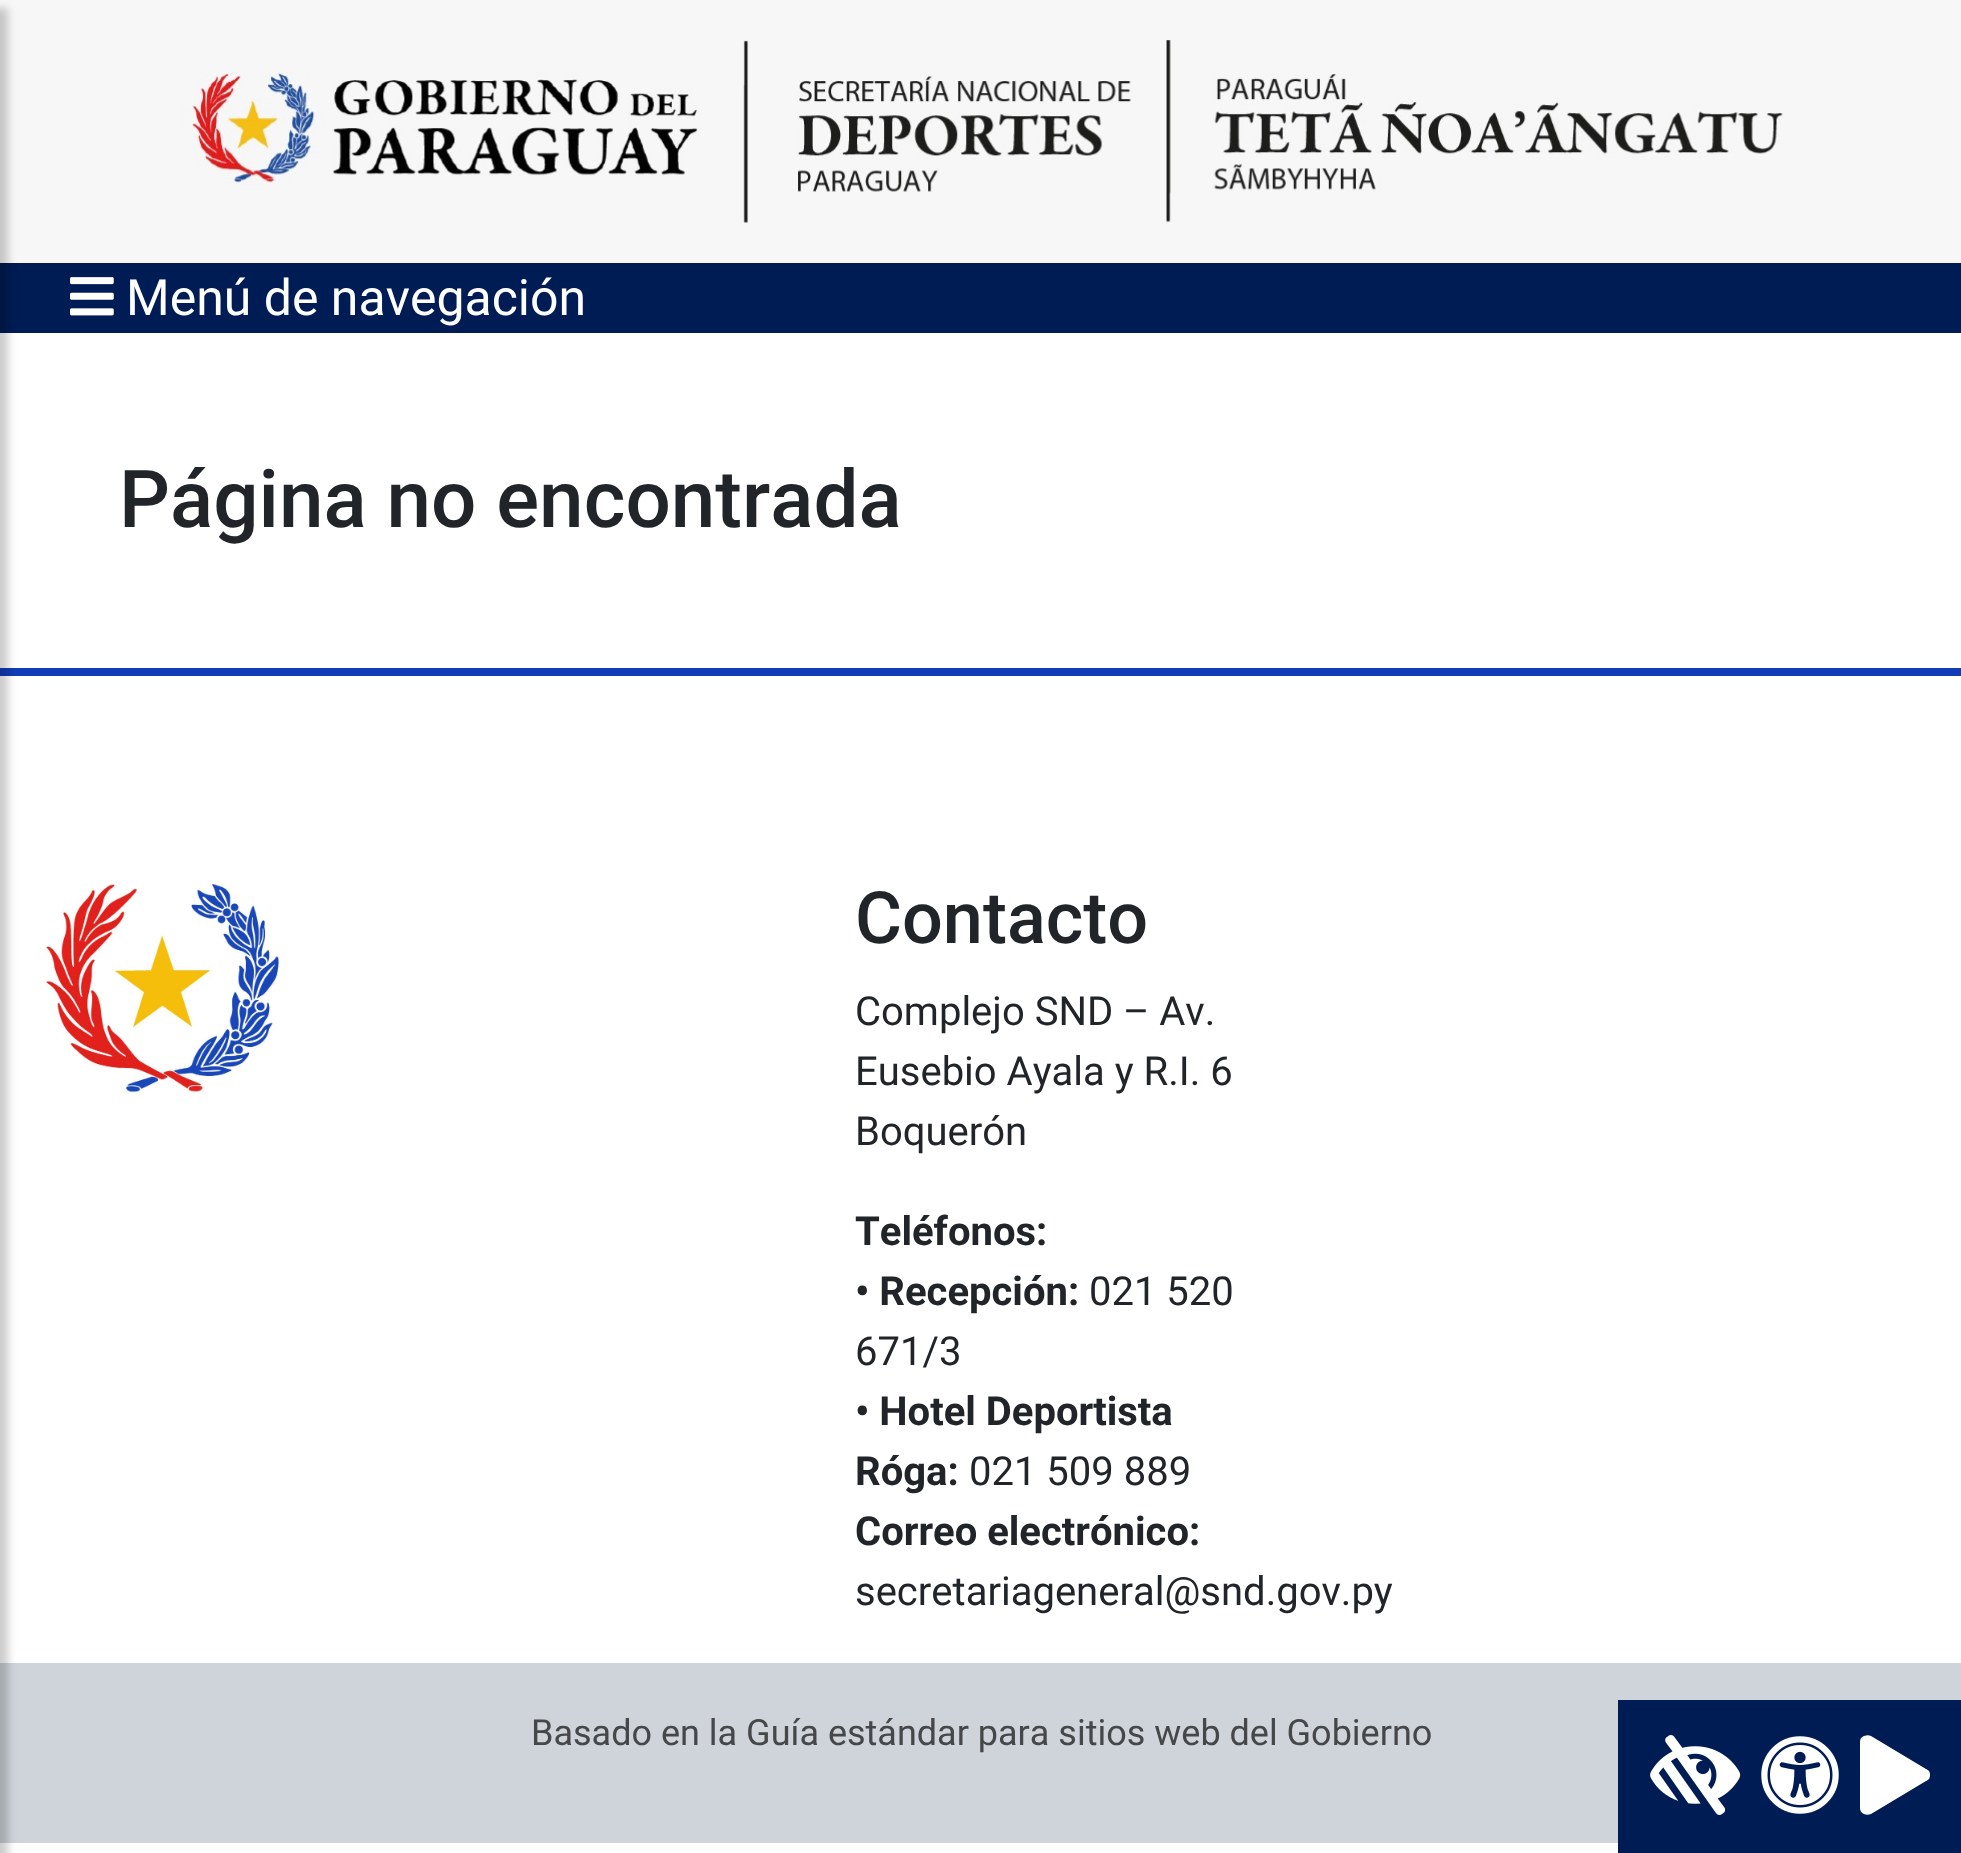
(async () => {
const canvas = document.querySelector("canvas")
canvas.width = 1961
canvas.height = 1853
const c = canvas.getContext("2d")
c.miterLimit = 4
c.fontKerning = "none"
function T(s,x,y){c.fillText(s,x,y)}
function R(x,y,w,h){c.fillRect(x,y,w,h)}
async function I(src,x,y,w,h){const img=new Image();img.src=src;await img.decode();c.drawImage(img,x,y,w,h)}
let path
c.fillStyle="#fff"
R(0,0,1961,1853)
c.fillStyle="#f7f7f7"
R(0,0,1961,263)
await I("1.png",180,40,1603,183)
c.fillStyle="#001c54"
R(0,263,1961,70)
c.fillStyle="#123cb5"
R(0,668,1961,8)
c.fillStyle="#ced4da"
R(0,1663,1961,180)
c.fillStyle="#00000033"
c.filter="blur(4px)"
c.beginPath()
c.rect(-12,8,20,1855)
c.fill()
c.filter="none"
await I("2.png",70,277,44,39)
c.font="50px Roboto"
c.fillStyle="#fff"
T("Menú de navegación",126,315)
c.font="500 80px Roboto"
c.fillStyle="#212529"
T("Página no encontrada",119,527)
await I("3.png",44,881,238,214)
c.font="500 72px Roboto"
T("Contacto",855,943)
c.font="40px Roboto"
T("Complejo SND – Av.",855,1025)
T("Eusebio Ayala y R.I. 6",855,1085)
T("Boquerón",855,1145)
c.font="bold 40px Roboto"
T("Teléfonos:",855,1245)
T("• Recepción:",855,1305)
c.font="40px Roboto"
T("021 520",1089,1305)
T("671/3",855,1365)
c.font="bold 40px Roboto"
T("• Hotel Deportista",855,1425)
T("Róga:",855,1485)
c.font="40px Roboto"
T("021 509 889",969,1485)
c.font="bold 40px Roboto"
T("Correo electrónico:",855,1545)
c.font="40px Roboto"
T("secretariageneral@snd.gov.py",855,1605)
c.font="36px Roboto"
c.fillStyle="#464749"
T("Basado en la Guía estándar para sitios web del Gobierno",531,1745)
c.fillStyle="#001c54"
R(1618,1700,343,153)
await I("4.png",1650,1735,91,80)
await I("5.png",1761,1736,78,78)
c.fillStyle="#fff"
path = new Path2D("M1926 1769c3 1 4 3 4 6c0 3-1 5-4 6l-55 33c-2 1-5 1-7 0c-3-1-4-4-4-6v-66c0-3 1-5 4-6c3-1 5-1 7 0z")
c.fill(path)
})()
